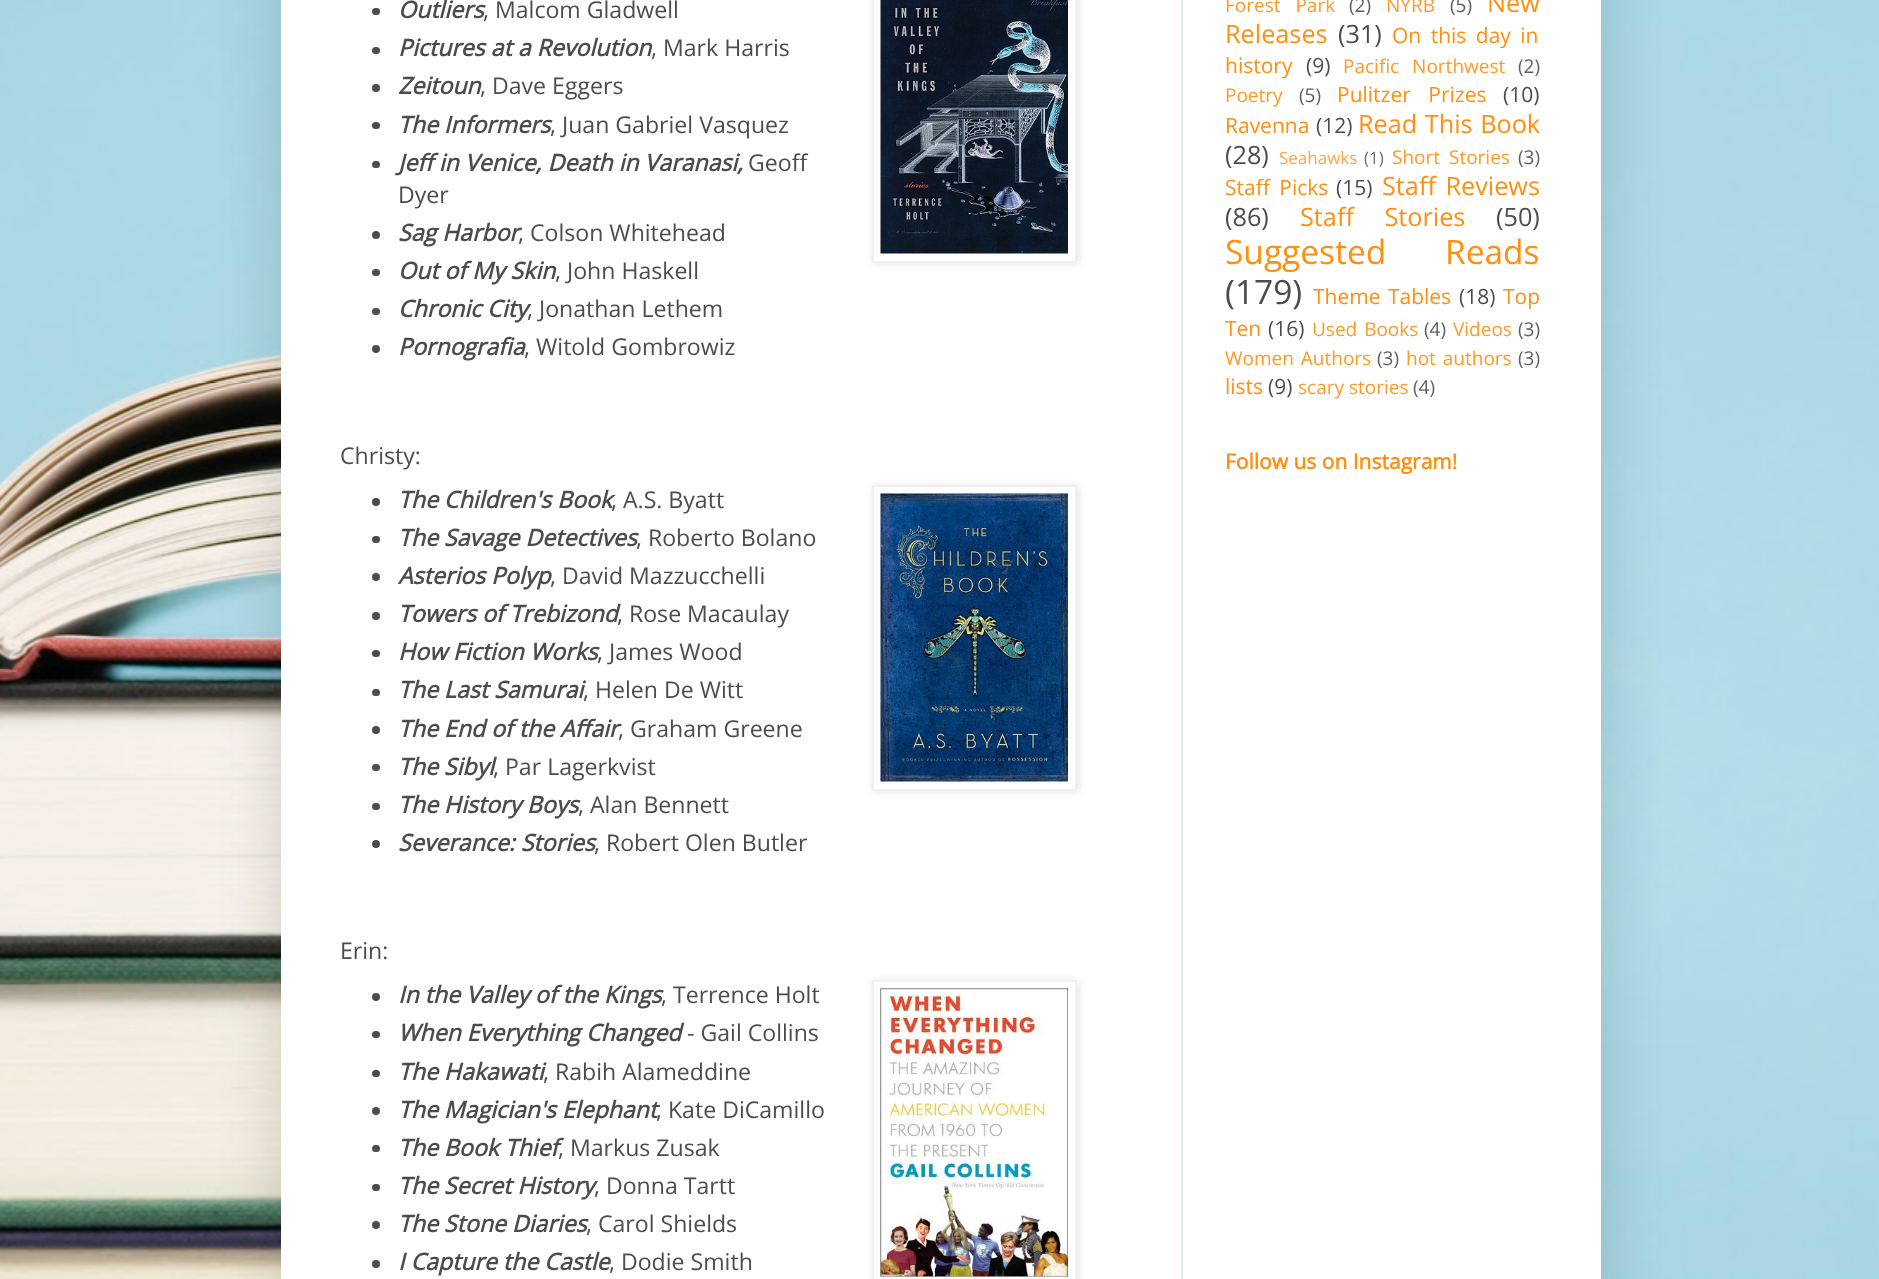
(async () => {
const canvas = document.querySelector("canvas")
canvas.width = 1879
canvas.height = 1279
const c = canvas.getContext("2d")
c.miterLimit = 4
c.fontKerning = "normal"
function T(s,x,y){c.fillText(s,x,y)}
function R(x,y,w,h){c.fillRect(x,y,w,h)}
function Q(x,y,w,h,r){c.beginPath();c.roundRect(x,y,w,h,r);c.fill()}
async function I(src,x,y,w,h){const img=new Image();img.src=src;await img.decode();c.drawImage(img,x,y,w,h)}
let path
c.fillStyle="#fff"
R(0,0,1879,1279)
await I("1.png",0,0,1879,1279)
c.fillStyle="#00000026"
c.filter="blur(30px)"
c.beginPath()
c.rect(281,-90,1320,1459)
c.fill()
c.filter="none"
c.fillStyle="#fff"
R(281,0,1320,1279)
c.fillStyle="#4c4c4c"
Q(372,8,8,7,3.5)
c.font="italic bold 23.1px Open Sans"
T("Outliers",398,18)
c.font="23.1px Open Sans"
T(", Malcom Gladwell",483,18)
c.fillStyle="#0000001a"
c.filter="blur(4px)"
c.beginPath()
c.rect(873,-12,206,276)
c.fill()
c.filter="none"
c.fillStyle="#fff"
c.beginPath()
c.rect(873,-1,203,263)
c.fill()
c.strokeStyle="#f0f0f0"
c.lineWidth=2
c.stroke()
await I("2.png",880,0,188,254)
c.fillStyle="#4c4c4c"
Q(372,47,8,7,3.5)
c.font="italic bold 23.1px Open Sans"
T("Pictures at a Revolution",398,56)
c.font="23.1px Open Sans"
T(", Mark Harris",651,56)
c.beginPath()
c.arc(376,88,4,0,7)
c.fill()
c.font="italic bold 23.1px Open Sans"
T("Zeitoun",398,94)
c.font="23.1px Open Sans"
T(", Dave Eggers",480,94)
Q(372,122,8,7,3.5)
c.font="italic bold 23.1px Open Sans"
T("The Informers",398,133)
c.font="23.1px Open Sans"
T(", Juan Gabriel Vasquez",550,133)
Q(372,161,8,7,3.5)
c.font="italic bold 23.1px Open Sans"
T("Jeff in Venice, Death in Varanasi,",398,171)
c.font="23.1px Open Sans"
T("Geoff",748,171)
T("Dyer",398,203)
c.beginPath()
c.arc(376,235,4,0,7)
c.fill()
c.font="italic bold 23.1px Open Sans"
T("Sag Harbor",398,241)
c.font="23.1px Open Sans"
T(", Colson Whitehead",518,241)
Q(372,269,8,7,3.5)
c.font="italic bold 23.1px Open Sans"
T("Out of My Skin",398,279)
c.font="23.1px Open Sans"
T(", John Haskell",555,279)
Q(372,308,8,7,3.5)
c.font="italic bold 23.1px Open Sans"
T("Chronic City",398,317)
c.font="23.1px Open Sans"
T(", Jonathan Lethem",527,317)
c.beginPath()
c.arc(376,349,4,0,7)
c.fill()
c.font="italic bold 23.1px Open Sans"
T("Pornografia",398,355)
c.font="23.1px Open Sans"
T(", Witold Gombrowiz",524,355)
T("Christy:",340,464)
c.beginPath()
c.arc(376,502,4,0,7)
c.fill()
c.font="italic bold 23.1px Open Sans"
T("The Children's Book",398,508)
c.font="23.1px Open Sans"
T(", A.S. Byatt",611,508)
c.fillStyle="#0000001a"
c.filter="blur(4px)"
c.beginPath()
c.rect(873,486,206,306)
c.fill()
c.filter="none"
c.fillStyle="#fff"
c.beginPath()
c.rect(873,486,203,304)
c.fill()
c.stroke()
await I("3.png",880,493,188,289)
c.fillStyle="#4c4c4c"
Q(372,536,8,7,3.5)
c.font="italic bold 23.1px Open Sans"
T("The Savage Detectives",398,546)
c.font="23.1px Open Sans"
T(", Roberto Bolano",636,546)
c.beginPath()
c.arc(376,577,4,0,7)
c.fill()
c.font="italic bold 23.1px Open Sans"
T("Asterios Polyp",398,584)
c.font="23.1px Open Sans"
T(", David Mazzucchelli",550,584)
c.beginPath()
c.arc(376,616,4,0,7)
c.fill()
c.font="italic bold 23.1px Open Sans"
T("Towers of Trebizond",398,622)
c.font="23.1px Open Sans"
T(", Rose Macaulay",617,622)
Q(372,650,8,7,3.5)
c.font="italic bold 23.1px Open Sans"
T("How Fiction Works",398,660)
c.font="23.1px Open Sans"
T(", James Wood",597,660)
Q(372,689,8,7,3.5)
c.font="italic bold 23.1px Open Sans"
T("The Last Samurai",398,698)
c.font="23.1px Open Sans"
T(", Helen De Witt",583,698)
c.beginPath()
c.arc(376,730,4,0,7)
c.fill()
c.font="italic bold 23.1px Open Sans"
T("The End of the Affair",398,737)
c.font="23.1px Open Sans"
T(", Graham Greene",618,737)
Q(372,764,8,7,3.5)
c.font="italic bold 23.1px Open Sans"
T("The Sibyl",398,775)
c.font="23.1px Open Sans"
T(", Par Lagerkvist",493,775)
Q(372,803,8,7,3.5)
c.font="italic bold 23.1px Open Sans"
T("The History Boys",398,813)
c.font="23.1px Open Sans"
T(", Alan Bennett",578,813)
c.beginPath()
c.arc(376,844,4,0,7)
c.fill()
c.font="italic bold 23.1px Open Sans"
T("Severance: Stories",398,851)
c.font="23.1px Open Sans"
T(", Robert Olen Butler",594,851)
T("Erin:",340,959)
c.beginPath()
c.arc(376,997,4,0,7)
c.fill()
c.font="italic bold 23.1px Open Sans"
T("In the Valley of the Kings",398,1003)
c.font="23.1px Open Sans"
T(", Terrence Holt",661,1003)
c.save()
path = new Path2D("M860 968h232v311h-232zm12 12h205v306h-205z")
c.clip(path,"evenodd")
c.fillStyle="#0000001a"
c.filter="blur(4px)"
c.beginPath()
c.rect(873,981,206,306)
c.fill()
c.filter="none"
c.restore()
c.strokeRect(873,981,203,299)
await I("4.png",880,988,188,289)
Q(372,1031,8,7,3.5)
c.font="italic bold 23.1px Open Sans"
T("When Everything Changed",398,1041)
c.font="23.1px Open Sans"
T("- Gail Collins",687,1041)
Q(372,1070,8,7,3.5)
c.font="italic bold 23.1px Open Sans"
T("The Hakawati",398,1080)
c.font="23.1px Open Sans"
T(", Rabih Alameddine",543,1080)
c.beginPath()
c.arc(376,1111,4,0,7)
c.fill()
c.font="italic bold 23.1px Open Sans"
T("The Magician's Elephant",398,1118)
c.font="23.1px Open Sans"
T(", Kate DiCamillo",656,1118)
Q(372,1145,8,7,3.5)
c.font="italic bold 23.1px Open Sans"
T("The Book Thief",398,1156)
c.font="23.1px Open Sans"
T(", Markus Zusak",558,1156)
Q(372,1184,8,7,3.5)
c.font="italic bold 23.1px Open Sans"
T("The Secret History",398,1194)
c.font="23.1px Open Sans"
T(", Donna Tartt",594,1194)
c.beginPath()
c.arc(376,1225,4,0,7)
c.fill()
c.font="italic bold 23.1px Open Sans"
T("The Stone Diaries",398,1232)
c.font="23.1px Open Sans"
T(", Carol Shields",586,1232)
c.beginPath()
c.arc(376,1264,4,0,7)
c.fill()
c.font="italic bold 23.1px Open Sans"
T("I Capture the Castle",398,1270)
c.font="23.1px Open Sans"
T(", Dodie Smith",609,1270)
c.wordSpacing="10px"
c.font="19px Open Sans"
c.fillStyle="#ff9a28"
T("Forest Park",1225,12)
c.wordSpacing="0px"
c.fillStyle="#5e5e5e"
T("(2)",1349,12)
c.fillStyle="#ff9a28"
T("NYRB",1386,12)
c.fillStyle="#5e5e5e"
T("(5)",1450,12)
c.font="25.25px Open Sans"
c.fillStyle="#ff8f10"
T("New",1487,12)
T("Releases",1225,43)
c.fillStyle="#4c4c4c"
T("(31)",1338,43)
c.wordSpacing="4px"
c.font="21px Open Sans"
c.fillStyle="#ff8f10"
T("On this day in",1392,43)
c.wordSpacing="0px"
T("history",1225,73)
c.fillStyle="#4c4c4c"
T("(9)",1306,73)
c.wordSpacing="8px"
c.font="19px Open Sans"
c.fillStyle="#ff9a28"
T("Pacific Northwest",1343,73)
c.wordSpacing="0px"
c.fillStyle="#5e5e5e"
T("(2)",1518,73)
c.fillStyle="#ff9a28"
T("Poetry",1225,102)
c.fillStyle="#5e5e5e"
T("(5)",1299,102)
c.wordSpacing="12px"
c.font="21px Open Sans"
c.fillStyle="#ff8f10"
T("Pulitzer Prizes",1337,102)
c.wordSpacing="0px"
c.fillStyle="#4c4c4c"
T("(10)",1503,102)
c.fillStyle="#ff8f10"
T("Ravenna",1225,133)
c.fillStyle="#4c4c4c"
T("(12)",1316,133)
c.wordSpacing="1px"
c.font="25.25px Open Sans"
c.fillStyle="#ff8f10"
T("Read This Book",1358,133)
c.wordSpacing="0px"
c.fillStyle="#4c4c4c"
T("(28)",1225,164)
c.font="17px Open Sans"
c.fillStyle="#ffa540"
T("Seahawks",1279,164)
c.fillStyle="#707070"
T("(1)",1364,164)
c.wordSpacing="4px"
c.font="19px Open Sans"
c.fillStyle="#ff9a28"
T("Short Stories",1392,164)
c.wordSpacing="0px"
c.fillStyle="#5e5e5e"
T("(3)",1518,164)
c.wordSpacing="4px"
c.font="21px Open Sans"
c.fillStyle="#ff8f10"
T("Staff Picks",1225,195)
c.wordSpacing="0px"
c.fillStyle="#4c4c4c"
T("(15)",1336,195)
c.wordSpacing="3px"
c.font="25.25px Open Sans"
c.fillStyle="#ff8f10"
T("Staff Reviews",1382,195)
c.wordSpacing="0px"
c.fillStyle="#4c4c4c"
T("(86)",1225,226)
c.wordSpacing="24px"
c.fillStyle="#ff8f10"
T("Staff Stories",1300,226)
c.wordSpacing="0px"
c.fillStyle="#4c4c4c"
T("(50)",1496,226)
c.wordSpacing="50px"
c.font="33.5px Open Sans"
c.fillStyle="#ff8f10"
T("Suggested Reads",1225,264)
c.wordSpacing="0px"
c.fillStyle="#4c4c4c"
T("(179)",1225,304)
c.wordSpacing="2px"
c.font="21px Open Sans"
c.fillStyle="#ff8f10"
T("Theme Tables",1313,304)
c.wordSpacing="0px"
c.fillStyle="#4c4c4c"
T("(18)",1459,304)
c.fillStyle="#ff8f10"
T("Top",1503,304)
T("Ten",1225,336)
c.fillStyle="#4c4c4c"
T("(16)",1268,336)
c.wordSpacing="2px"
c.font="19px Open Sans"
c.fillStyle="#ff9a28"
T("Used Books",1312,336)
c.wordSpacing="0px"
c.fillStyle="#5e5e5e"
T("(4)",1424,336)
c.fillStyle="#ff9a28"
T("Videos",1453,336)
c.fillStyle="#5e5e5e"
T("(3)",1518,336)
c.wordSpacing="2px"
c.fillStyle="#ff9a28"
T("Women Authors",1225,365)
c.wordSpacing="0px"
c.fillStyle="#5e5e5e"
T("(3)",1377,365)
c.wordSpacing="2px"
c.fillStyle="#ff9a28"
T("hot authors",1406,365)
c.wordSpacing="0px"
c.fillStyle="#5e5e5e"
T("(3)",1518,365)
c.font="21px Open Sans"
c.fillStyle="#ff8f10"
T("lists",1225,394)
c.fillStyle="#4c4c4c"
T("(9)",1268,394)
c.font="19px Open Sans"
c.fillStyle="#ff9a28"
T("scary stories",1298,394)
c.fillStyle="#5e5e5e"
T("(4)",1413,394)
c.font="bold 21px Open Sans"
c.fillStyle="#ff8f10"
T("Follow us on Instagram!",1225,469)
c.fillStyle="#e0efee"
R(1181,0,2,1279)
})()
